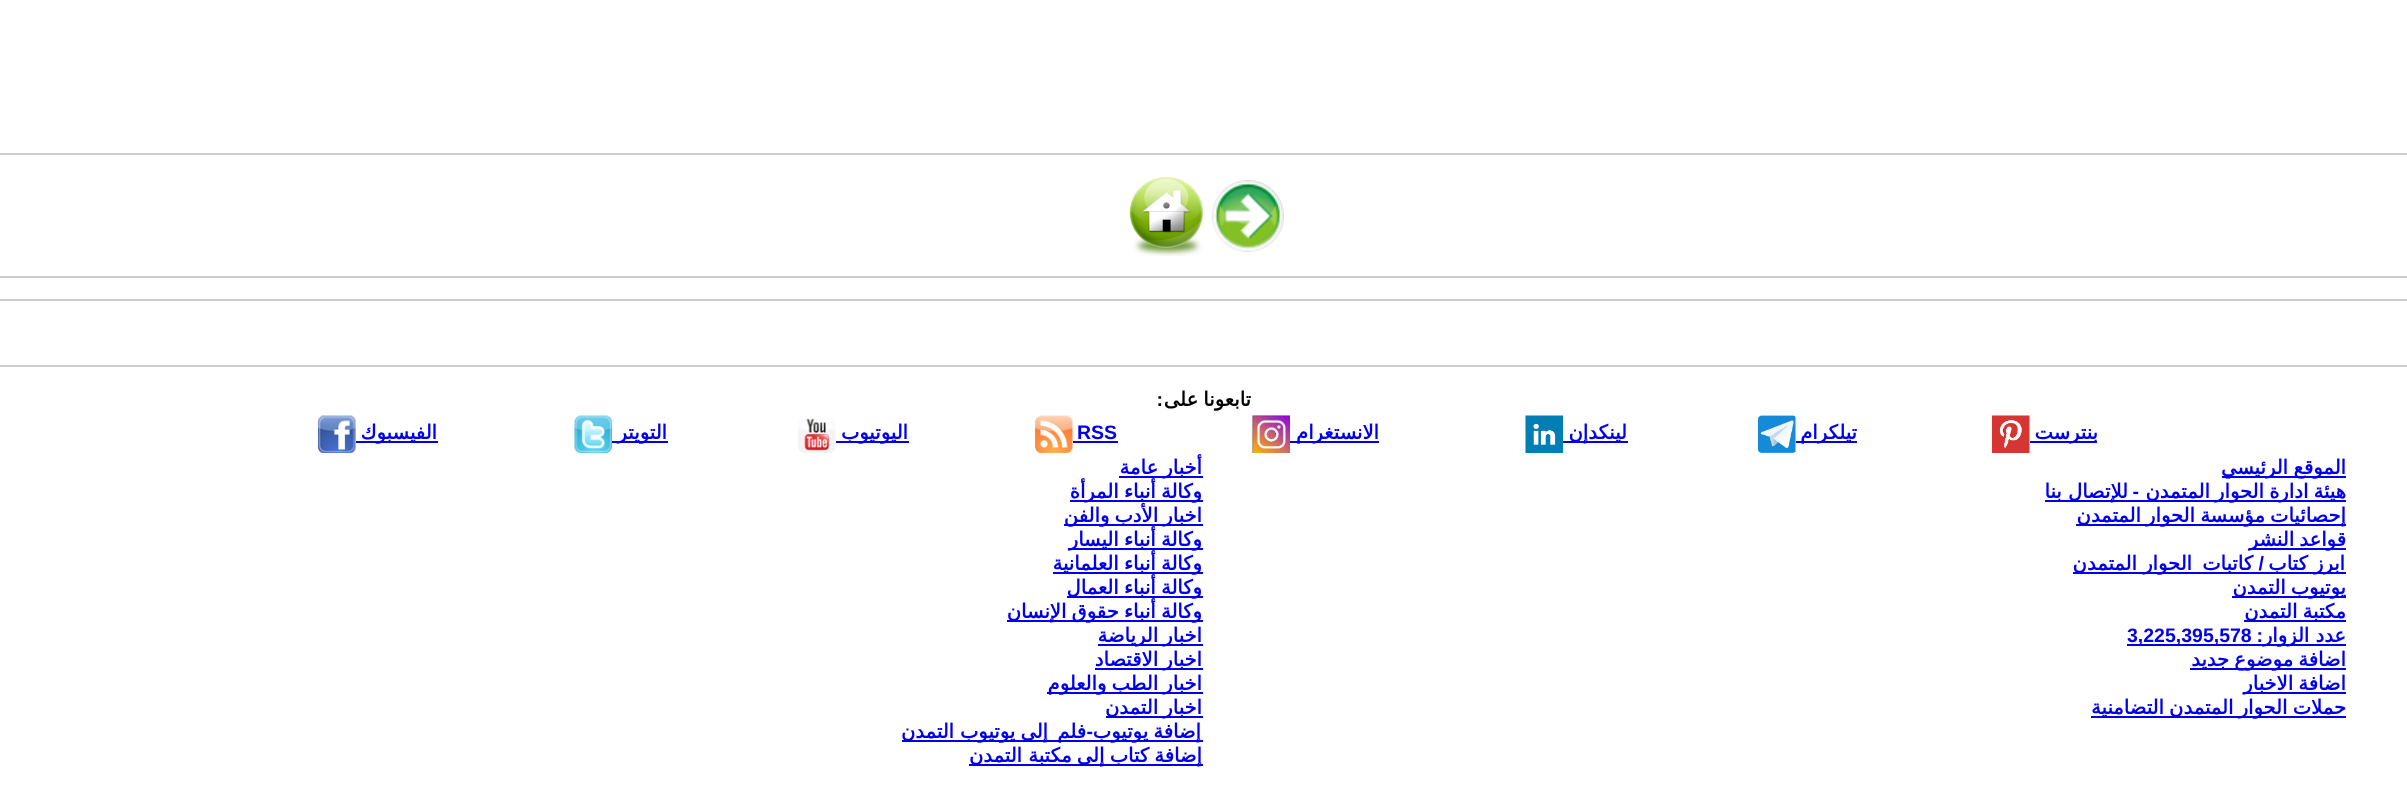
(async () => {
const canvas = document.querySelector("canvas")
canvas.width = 2407
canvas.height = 789
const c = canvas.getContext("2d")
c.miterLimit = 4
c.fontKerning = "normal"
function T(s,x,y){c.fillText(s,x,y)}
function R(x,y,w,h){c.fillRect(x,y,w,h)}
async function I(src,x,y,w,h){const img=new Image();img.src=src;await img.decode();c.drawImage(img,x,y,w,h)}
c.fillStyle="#fff"
R(0,0,2407,789)
c.fillStyle="#ccc"
R(0,153,2407,2)
await I("1.png",1212,180,72,72)
await I("2.png",1129,177,74,79)
R(0,276,2407,2)
R(0,299,2407,2)
R(0,365,2407,2)
c.wordSpacing="-1px"
c.direction="rtl"
c.font="bold 19.5px DejaVu Sans"
c.fillStyle="#000"
T("تابعونا على",1251,406)
c.wordSpacing="0px"
c.font="bold 19.5px Liberation Sans"
T(":",1163,406)
c.fillStyle="#00e"
R(2030,441,67,2)
c.font="bold 19.5px DejaVu Sans"
T("بنترست",2098,439)
await I("3.png",1992,415,38,38)
R(1796,441,61,2)
T("تيلكرام",1857,439)
await I("4.png",1758,415,38,38)
R(1563,441,65,2)
T("لينكدإن",1627,439)
await I("5.png",1525,415,38,38)
R(1290,441,89,2)
T("الانستغرام",1379,439)
await I("6.png",1252,415,38,38)
c.direction="ltr"
c.font="bold 19.5px Liberation Sans"
T("RSS",1077,439)
R(1073,441,45,2)
await I("7.png",1035,415,38,38)
R(836,441,73,2)
c.direction="rtl"
c.font="bold 19.5px DejaVu Sans"
T("اليوتيوب",908,439)
await I("8.png",798,418,38,35)
R(612,441,56,2)
T("التويتر",667,439)
await I("9.png",574,415,38,38)
R(356,441,82,2)
T("الفيسبوك",437,439)
await I("10.png",318,415,38,38)
R(2222,476,124,2)
T("الموقع",2346,474)
T("الرئيسي",2288,474)
R(2045,500,301,2)
c.wordSpacing="-1px"
T("هيئة ادارة الحوار المتمدن",2346,498)
c.wordSpacing="0px"
c.font="bold 19.5px Liberation Sans"
T("-",2139,498)
c.font="bold 19.5px DejaVu Sans"
T("للإتصال بنا",2128,498)
R(2076,524,270,2)
c.wordSpacing="-1px"
T("إحصائيات مؤسسة الحوار المتمدن",2346,522)
R(2249,548,97,2)
T("قواعد النشر",2346,546)
R(2073,572,273,2)
c.wordSpacing="0px"
T("ابرز كتاب",2345,570)
c.font="bold 19.5px Liberation Sans"
T("/",2264,570)
c.font="bold 19.5px DejaVu Sans"
T("كاتبات",2253,570)
T("الحوار المتمدن",2192,570)
R(2232,596,114,2)
c.wordSpacing="-1px"
T("يوتيوب التمدن",2346,594)
R(2244,620,102,2)
T("مكتبة التمدن",2346,618)
R(2127,644,219,2)
c.wordSpacing="0px"
T("عدد الزوار",2346,642)
c.font="bold 19.5px Liberation Sans"
T(":",2263,642)
c.direction="ltr"
T("3,225,395,578",2127,642)
R(2190,668,156,2)
c.wordSpacing="-1px"
c.direction="rtl"
c.font="bold 19.5px DejaVu Sans"
T("اضافة موضوع جديد",2346,666)
R(2243,692,103,2)
T("اضافة الاخبار",2346,690)
R(2091,716,255,2)
T("حملات الحوار المتمدن التضامنية",2346,714)
R(1119,476,84,2)
T("أخبار عامة",1202,474)
R(1070,500,133,2)
T("وكالة أنباء المرأة",1202,498)
R(1064,524,139,2)
T("اخبار الأدب والفن",1202,522)
R(1068,548,135,2)
T("وكالة أنباء اليسار",1202,546)
R(1053,572,150,2)
T("وكالة أنباء العلمانية",1202,570)
R(1067,596,136,2)
T("وكالة أنباء العمال",1202,594)
R(1007,620,196,2)
T("وكالة أنباء حقوق الإنسان",1202,618)
R(1098,644,105,2)
T("اخبار الرياضة",1202,642)
R(1095,668,108,2)
T("اخبار الاقتصاد",1202,666)
R(1047,692,156,2)
T("اخبار الطب والعلوم",1202,690)
R(1106,716,97,2)
T("اخبار التمدن",1202,714)
R(902,740,301,2)
T("إضافة يوتيوب",1201,738)
c.wordSpacing="0px"
c.font="bold 19.5px Liberation Sans"
T("-",1093,738)
c.font="bold 19.5px DejaVu Sans"
T("فلم",1086,738)
c.wordSpacing="-1px"
T("إلى يوتيوب",1048,738)
c.wordSpacing="0px"
T("التمدن",954,738)
R(969,764,234,2)
c.wordSpacing="-1px"
T("إضافة كتاب إلى مكتبة",1202,762)
c.wordSpacing="0px"
T("التمدن",1022,762)
})()
